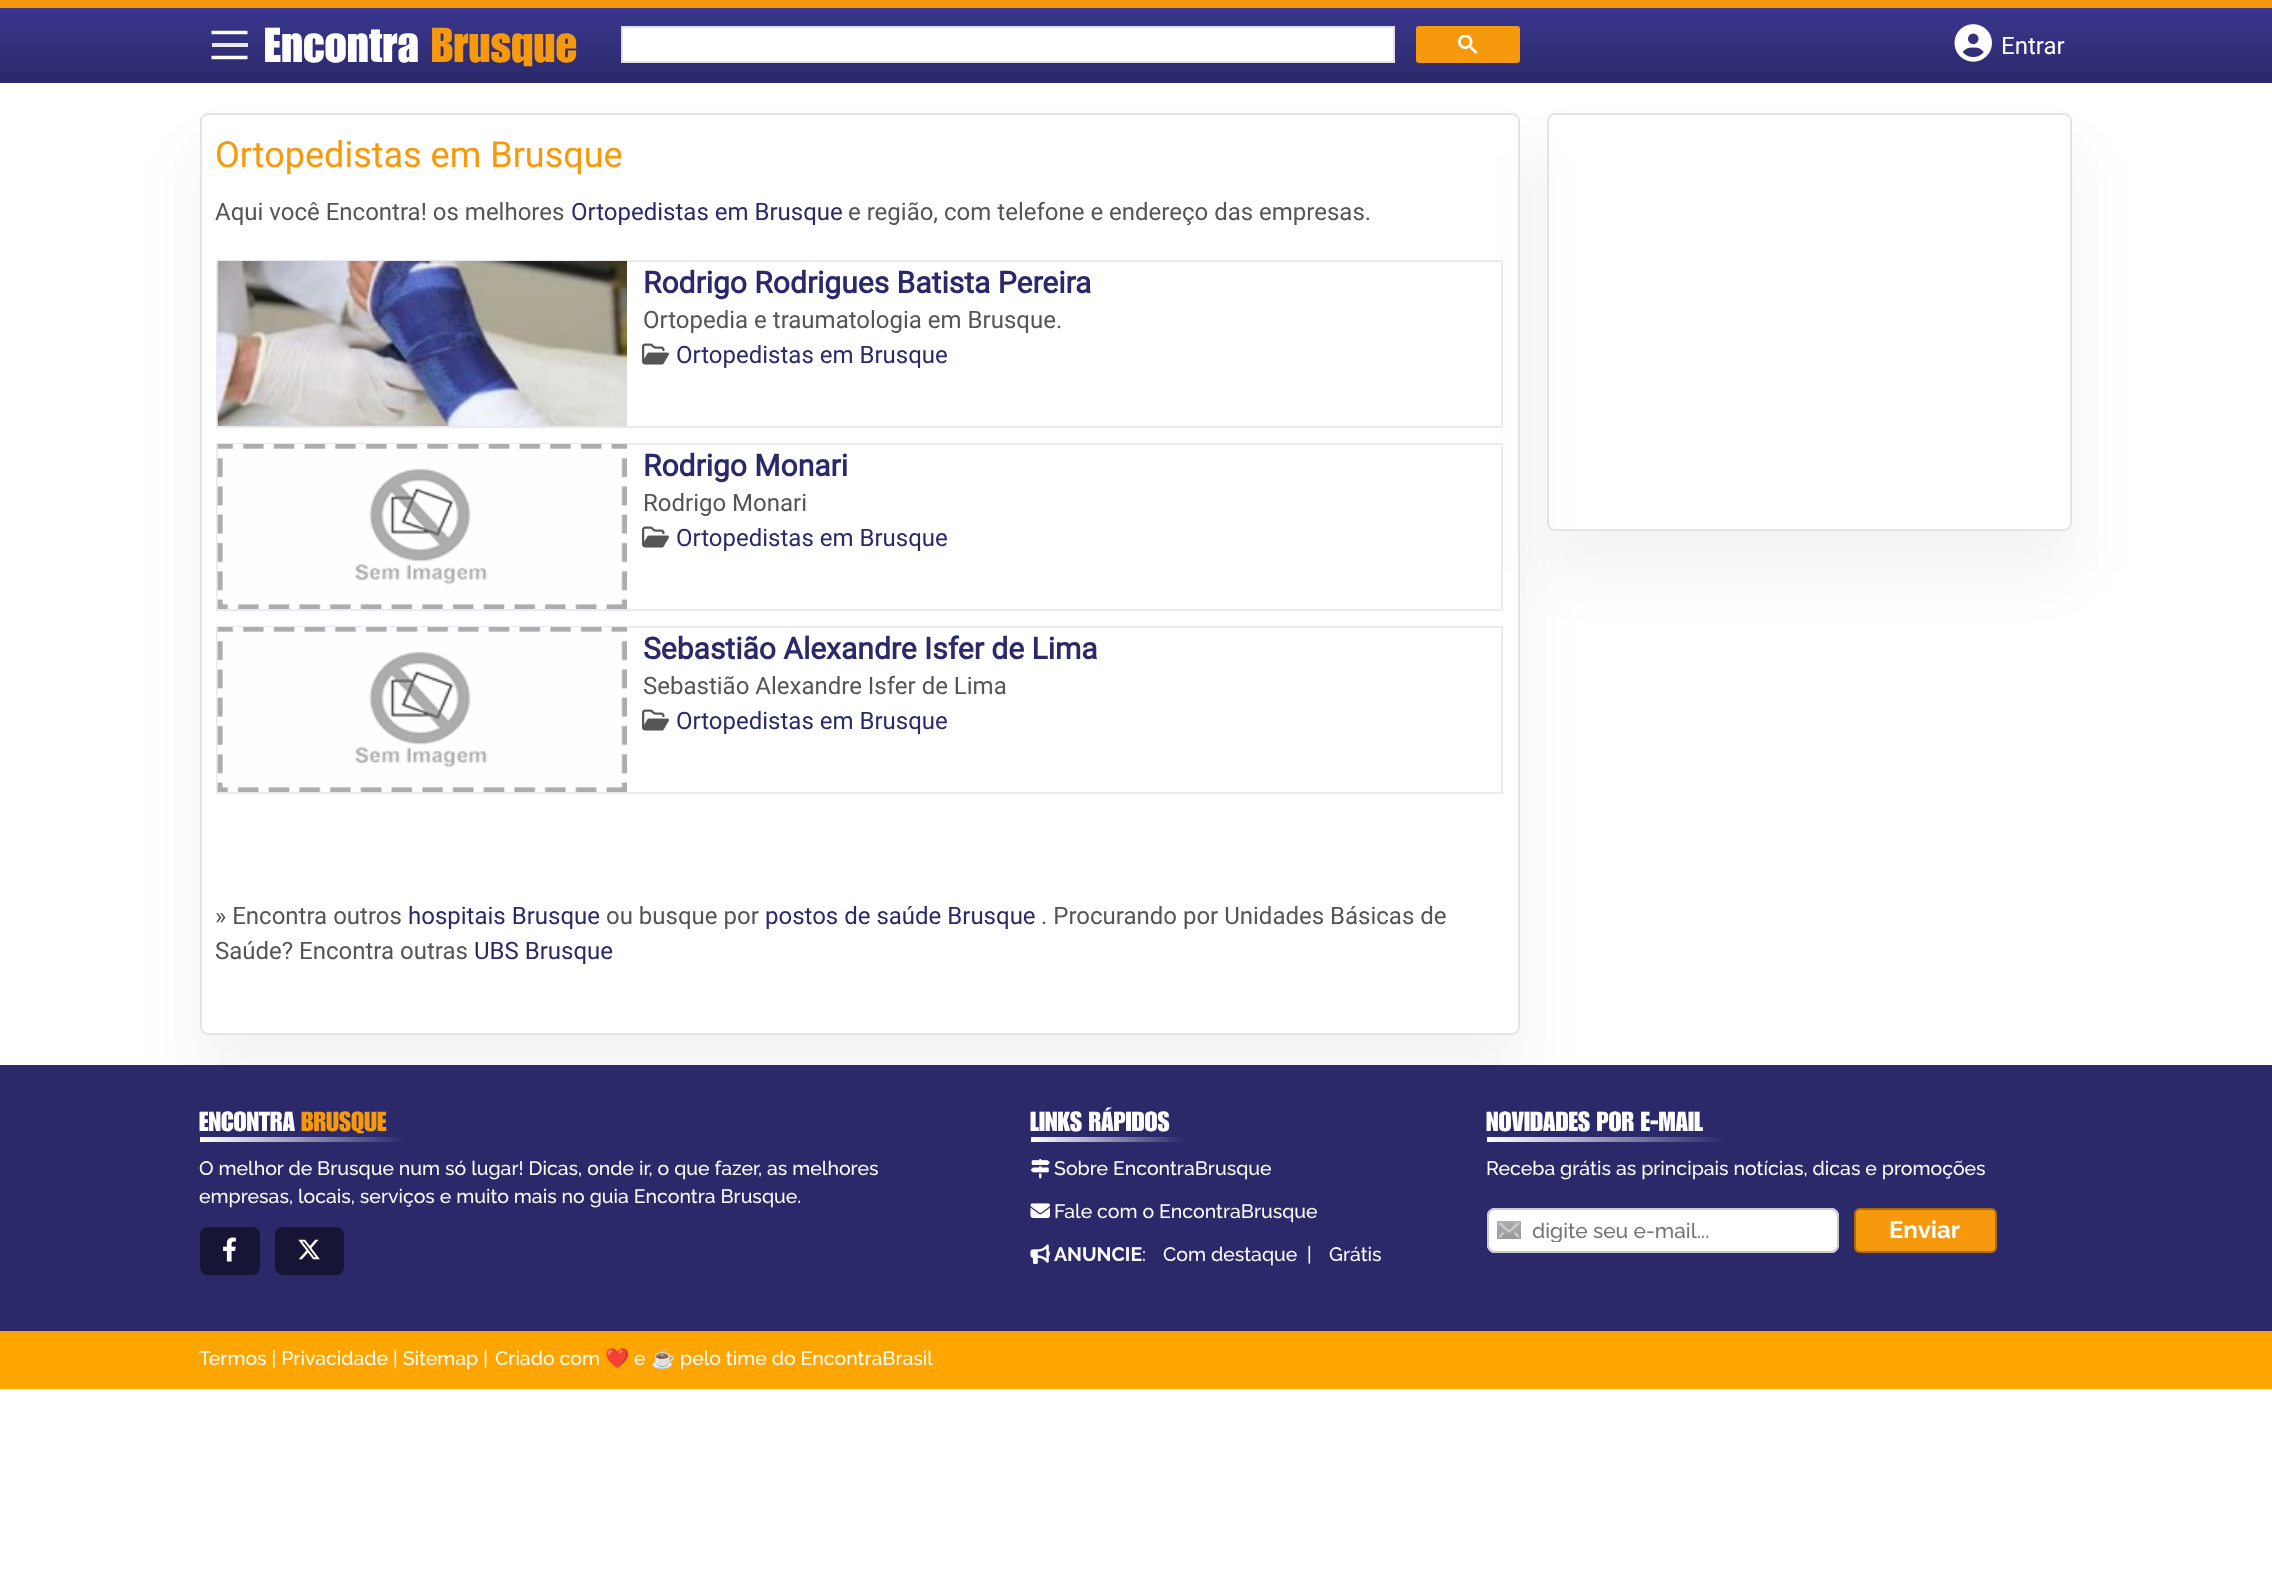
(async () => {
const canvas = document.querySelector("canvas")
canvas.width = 2272
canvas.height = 1572
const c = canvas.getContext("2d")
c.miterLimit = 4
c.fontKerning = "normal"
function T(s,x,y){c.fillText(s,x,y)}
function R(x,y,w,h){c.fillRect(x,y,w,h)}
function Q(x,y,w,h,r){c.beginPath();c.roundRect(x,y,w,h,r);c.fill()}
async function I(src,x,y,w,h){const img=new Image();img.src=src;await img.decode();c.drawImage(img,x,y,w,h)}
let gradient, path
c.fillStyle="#fff"
R(0,0,2272,1572)
c.save()
path = new Path2D("M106 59h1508v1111h-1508zm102 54h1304c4.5 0 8 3.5 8 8v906c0 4.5-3.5 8-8 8h-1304c-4.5 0-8-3.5-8-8v-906c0-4.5 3.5-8 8-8z")
c.clip(path,"evenodd")
c.fillStyle="#0000000d"
c.filter="blur(31px)"
c.beginPath()
c.roundRect(200,153,1320,923,8)
c.fill()
c.filter="none"
c.restore()
c.beginPath()
c.roundRect(201,114,1318,920,7)
c.strokeStyle="#0000001a"
c.lineWidth=2
c.stroke()
c.save()
path = new Path2D("M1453 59h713v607h-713zm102 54h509c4.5 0 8 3.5 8 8v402c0 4.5-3.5 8-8 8h-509c-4.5 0-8-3.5-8-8v-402c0-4.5 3.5-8 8-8z")
c.clip(path,"evenodd")
c.fillStyle="#0000000d"
c.filter="blur(31px)"
c.beginPath()
c.roundRect(1547,153,525,419,8)
c.fill()
c.filter="none"
c.restore()
gradient = c.createLinearGradient(1136,7.5,1136,83)
gradient.addColorStop(0,"#3a378f")
gradient.addColorStop(1,"#2b296a")
c.fillStyle = gradient
R(0,8,2272,75)
c.fillStyle="#f6990d"
R(0,0,2272,8)
path = new Path2D("M211.5 32.5h36")
c.strokeStyle="#fefefe"
c.lineWidth=3.6
c.stroke(path)
c.fillStyle="#eae9f1"
R(212,43,36,4)
path = new Path2D("M211.5 57.5h36")
c.stroke(path)
c.font="500 48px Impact"
c.fillStyle="#fefefe"
T("Encontra",264,62)
c.fillStyle="#f6990d"
T("Brusque",431,62)
c.fillStyle="#fff"
c.beginPath()
c.rect(622,27,772,35)
c.fill()
c.strokeStyle="#dfe1e5"
c.lineWidth=2
c.stroke()
c.fillStyle="#f6990d"
c.beginPath()
c.roundRect(1417,27,102,35,2)
c.fill()
c.strokeStyle="#f6990d"
c.stroke()
await I("1.png",1458,35,20,19)
await I("2.png",1954,24,38,38)
c.font="24px Roboto"
c.fillStyle="#fefefe"
T("Entrar",2001,54)
c.font="36px Roboto"
c.fillStyle="#f6990d"
T("Ortopedistas em Brusque",215,167)
c.font="24px Roboto"
c.fillStyle="#555"
T("Aqui você Encontra! os melhores",215,220)
c.fillStyle="#2b296a"
T("Ortopedistas em Brusque",571,220)
c.fillStyle="#555"
T("e região, com telefone e endereço das empresas.",848,220)
c.strokeStyle="#eaeaf0"
c.strokeRect(217,261,1285,166)
await I("3.png",217,261,410,165)
c.font="bold 30px Roboto"
c.fillStyle="#2b296a"
T("Rodrigo Rodrigues Batista Pereira",643,293)
c.font="24px Roboto"
c.fillStyle="#555"
T("Ortopedia e traumatologia em Brusque.",643,328)
await I("4.png",642,343,27,22)
c.fillStyle="#2b296a"
T("Ortopedistas em Brusque",676,363)
c.strokeRect(217,444,1285,166)
await I("5.png",217,444,410,165)
c.font="bold 30px Roboto"
T("Rodrigo Monari",643,476)
c.font="24px Roboto"
c.fillStyle="#555"
T("Rodrigo Monari",643,511)
await I("4.png",642,526,27,22)
c.fillStyle="#2b296a"
T("Ortopedistas em Brusque",676,546)
c.strokeRect(217,627,1285,166)
await I("6.png",217,627,410,165)
c.font="bold 30px Roboto"
T("Sebastião Alexandre Isfer de Lima",643,659)
c.font="24px Roboto"
c.fillStyle="#555"
T("Sebastião Alexandre Isfer de Lima",643,694)
await I("4.png",642,709,27,22)
c.fillStyle="#2b296a"
T("Ortopedistas em Brusque",676,729)
c.fillStyle="#555"
T("» Encontra outros",215,924)
c.fillStyle="#2b296a"
T("hospitais Brusque",408,924)
c.fillStyle="#555"
T("ou busque por",606,924)
c.fillStyle="#2b296a"
T("postos de saúde Brusque",765,924)
c.fillStyle="#555"
T(". Procurando por Unidades Básicas de",1041,924)
T("Saúde? Encontra outras",215,959)
c.fillStyle="#2b296a"
T("UBS Brusque",474,959)
c.beginPath()
c.roundRect(1548,114,523,416,7)
c.strokeStyle="#0000001a"
c.stroke()
R(0,1065,2272,266)
c.font="500 27px Impact"
c.fillStyle="#fefefe"
T("ENCONTRA",199,1131)
c.fillStyle="#f6990d"
T("BRUSQUE",301,1131)
gradient = c.createLinearGradient(200,1139,405,1139)
gradient.addColorStop(0,"#fff")
gradient.addColorStop(1,"#2b296a")
c.fillStyle = gradient
R(200,1137,205,5)
c.font="500 19.5px Raleway"
c.fillStyle="#fefefe"
T("O melhor de Brusque num só lugar! Dicas, onde ir, o que fazer, as melhores",199,1175)
T("empresas, locais, serviços e muito mais no guia Encontra Brusque.",199,1203)
c.fillStyle="#161535"
Q(200,1227,60,48,8)
await I("7.png",223,1237,13,25)
Q(275,1227,69,48,8)
await I("8.png",298,1239,22,21)
c.font="500 27px Impact"
c.fillStyle="#fefefe"
T("LINKS RÁPIDOS",1030,1131)
gradient = c.createLinearGradient(1031,1139,1184,1139)
gradient.addColorStop(0,"#fff")
gradient.addColorStop(1,"#2b296a")
c.fillStyle = gradient
R(1031,1137,153,5)
await I("9.png",1030,1158,20,21)
c.font="500 19.5px Raleway"
c.fillStyle="#fefefe"
T("Sobre EncontraBrusque",1054,1175)
await I("10.png",1030,1203,20,15)
T("Fale com o EncontraBrusque",1054,1218)
await I("11.png",1030,1244,20,20)
c.font="bold 19.5px Raleway"
T("ANUNCIE",1054,1261)
c.font="500 19.5px Raleway"
T(":",1142,1261)
T("Com destaque",1163,1261)
T("|",1307,1261)
T("Grátis",1329,1261)
c.font="500 27px Impact"
T("NOVIDADES POR E-MAIL",1486,1131)
gradient = c.createLinearGradient(1487,1139,1725,1139)
gradient.addColorStop(0,"#fff")
gradient.addColorStop(1,"#2b296a")
c.fillStyle = gradient
R(1487,1137,238,5)
c.font="500 19.5px Raleway"
c.fillStyle="#fefefe"
T("Receba grátis as principais notícias, dicas e promoções",1486,1175)
c.fillStyle="#fff"
Q(1487,1208,352,45,8)
await I("12.png",1497,1221,24,18)
c.beginPath()
c.roundRect(1488,1209,350,43,7)
c.strokeStyle="#ccc"
c.stroke()
c.save()
c.beginPath()
c.rect(1533,1218,305,24)
c.clip()
c.font="500 21px Raleway"
c.fillStyle="#757575"
T("digite seu e-mail...",1532,1238)
c.restore()
c.fillStyle="#f6990d"
Q(1854,1208,143,45,6)
c.beginPath()
c.roundRect(1855,1209,141,43,5)
c.strokeStyle="#0000004d"
c.stroke()
c.font="bold 24px Raleway"
c.fillStyle="#fefefe"
T("Enviar",1889,1238)
c.fillStyle="#ffa500"
R(0,1331,2272,58)
c.font="500 19.5px Raleway"
c.fillStyle="#fefefe"
T("Termos | Privacidade | Sitemap |",199,1365)
T("Criado com",495,1365)
c.font="19.5px Noto Color Emoji"
T("❤️",605,1365)
c.font="500 19.5px Raleway"
T("e",634,1365)
c.font="19.5px Noto Color Emoji"
T("☕",651,1365)
c.font="500 19.5px Raleway"
T("pelo time do EncontraBrasil",680,1365)
})()
